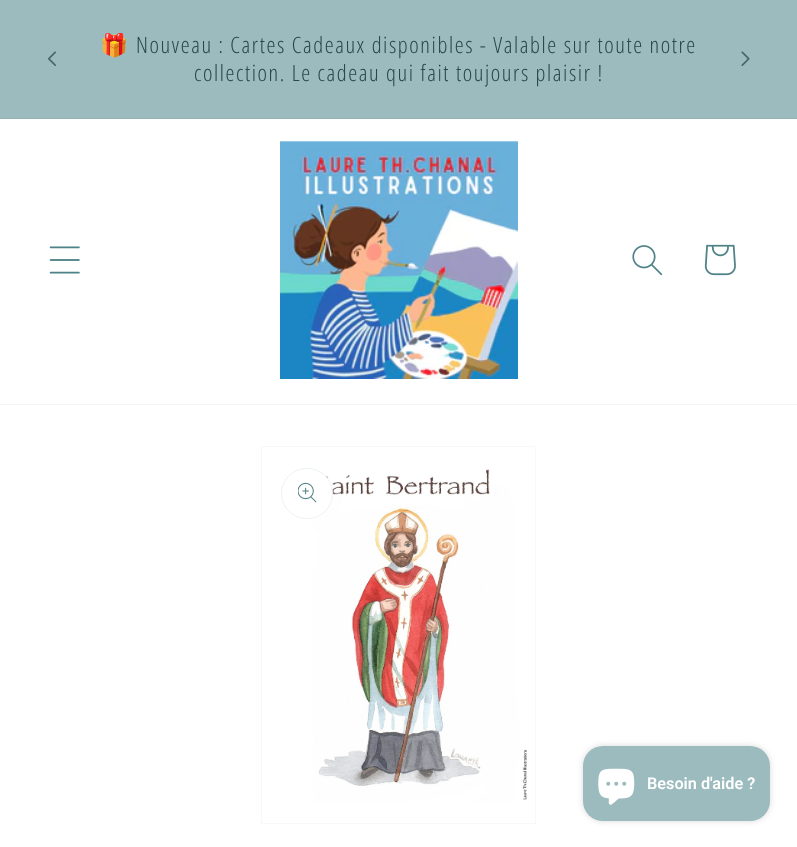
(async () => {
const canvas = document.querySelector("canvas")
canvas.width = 797
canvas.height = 847
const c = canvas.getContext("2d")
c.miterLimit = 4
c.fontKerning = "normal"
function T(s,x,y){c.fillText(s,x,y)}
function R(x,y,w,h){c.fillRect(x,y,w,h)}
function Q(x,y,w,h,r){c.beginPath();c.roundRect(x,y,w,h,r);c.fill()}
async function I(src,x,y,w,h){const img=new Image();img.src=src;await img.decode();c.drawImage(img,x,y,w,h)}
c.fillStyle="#fff"
R(0,0,797,847)
c.fillStyle="#9bbbbe"
R(0,0,797,118)
c.fillStyle="#92b2b5"
R(0,118,797,1)
await I("1.png",48,51,8,15)
c.letterSpacing="1.62px"
c.font="22.5px Noto Color Emoji"
c.fillStyle="#294749"
T("🎁",100,53)
c.font="300 22.5px Open Sans Condensed"
T("Nouveau : Cartes Cadeaux disponibles - Valable sur toute notre",136,53)
T("collection. Le cadeau qui fait toujours plaisir !",194,81)
await I("2.png",741,51,9,15)
c.fillStyle="#f1f5f5"
R(0,404,797,1)
await I("3.png",49,246,31,28)
await I("4.png",280,141,238,238)
await I("5.png",632,245,31,31)
await I("6.png",704,244,32,32)
c.strokeStyle="#f6f9f9"
c.strokeRect(261.5,446.5,274,377)
await I("8.png",313,469,214,334)
c.fillStyle="#fff"
Q(281,468,52,51,25.5)
c.beginPath()
c.roundRect(281.5,468.5,51,50,25)
c.strokeStyle="#5083871a"
c.stroke()
await I("7.png",298,482,19,21)
c.fillStyle="#00000026"
c.filter="blur(3px)"
c.beginPath()
c.roundRect(583,746,187,75,20)
c.fill()
c.filter="none"
c.fillStyle="#9bbbbe"
Q(583,746,187,75,20)
await I("9.png",598,768,37,37)
c.letterSpacing="0px"
c.font="600 16.25px Roboto"
c.fillStyle="#fff"
T("Besoin d'aide ?",647,789)
})()
